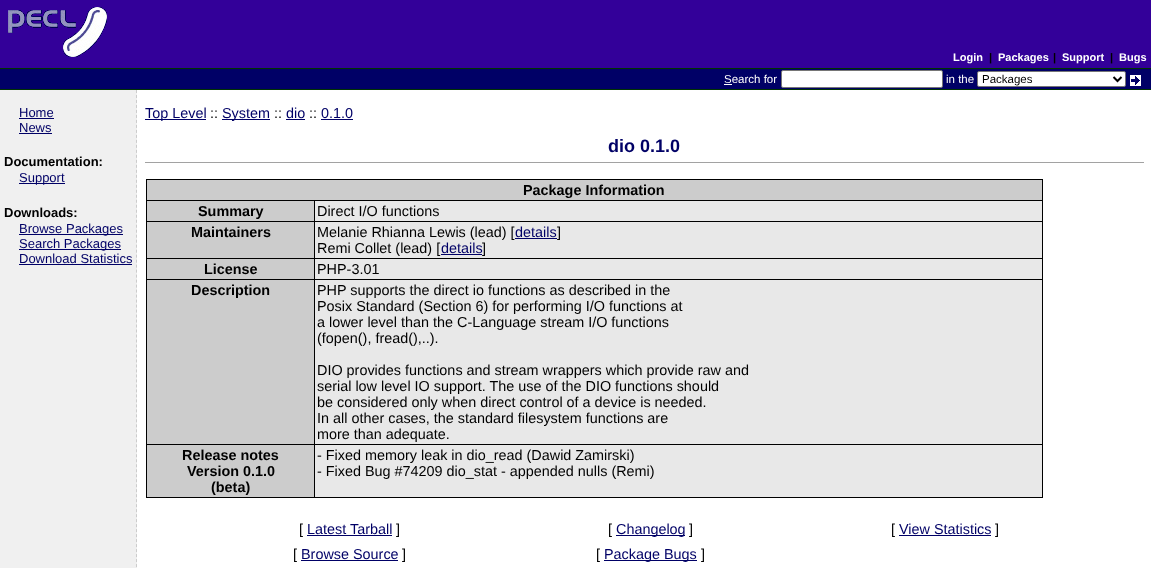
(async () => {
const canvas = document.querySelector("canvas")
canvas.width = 1151
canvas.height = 568
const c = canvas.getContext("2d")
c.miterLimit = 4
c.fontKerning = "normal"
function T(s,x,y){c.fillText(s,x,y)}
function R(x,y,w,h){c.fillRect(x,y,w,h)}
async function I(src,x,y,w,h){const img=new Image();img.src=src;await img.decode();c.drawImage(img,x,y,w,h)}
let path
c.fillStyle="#fff"
R(0,0,1151,568)
c.fillStyle="#309"
R(0,0,1151,68)
await I("1.png",8,7,99,50)
c.font="bold 11px Liberation Sans"
c.fillStyle="#fff"
T("Login",953,61)
c.fillStyle="#000"
T("|",989,61)
c.fillStyle="#fff"
T("Packages",998,61)
c.fillStyle="#000"
T("|",1053,61)
c.fillStyle="#fff"
T("Support",1062,61)
c.fillStyle="#000"
T("|",1110,61)
c.fillStyle="#fff"
T("Bugs",1119,61)
c.fillStyle="#006"
R(0,69,1151,20)
c.fillStyle="#030"
R(0,68,1151,1)
R(0,89,1151,1)
c.font="11.5px Liberation Sans"
c.fillStyle="#fff"
T("Search for",724,83)
R(724,84,8,1)
c.beginPath()
c.roundRect(781.5,70.5,161,17,1.5)
c.fill()
c.strokeStyle="#767676"
c.stroke()
T("in the",946,83)
c.beginPath()
c.roundRect(977.5,71.5,148,15,1.5)
c.fill()
c.stroke()
path = new Path2D("M1113.5 77l4 4l4-4")
c.strokeStyle="#000"
c.lineWidth=2
c.stroke(path)
c.fillStyle="#000"
T("Packages",982,83)
await I("2.png",1130,75,11,11)
c.fillStyle="#f0f0f0"
R(0,90,137,478)
path = new Path2D("M136.5 90v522")
c.strokeStyle="#ccc"
c.lineWidth=1
c.setLineDash([3,1.99])
c.stroke(path)
c.font="13px Liberation Sans"
c.fillStyle="#006"
T("Home",19,117)
R(19,118,35,1)
T("News",19,132)
R(19,133,33,1)
c.font="bold 13px Liberation Sans"
c.fillStyle="#000"
T("Documentation:",4,166)
c.fillStyle="#006"
R(19,183,46,1)
c.font="13px Liberation Sans"
T("Support",19,182)
c.font="bold 13px Liberation Sans"
c.fillStyle="#000"
T("Downloads:",4,217)
c.fillStyle="#006"
R(19,234,104,1)
c.font="13px Liberation Sans"
T("Browse Packages",19,233)
R(19,249,102,1)
T("Search Packages",19,248)
T("Download Statistics",19,263)
R(19,264,113,1)
R(145,119,61,1)
c.font="14.4px Liberation Sans"
T("Top Level",145,118)
c.fillStyle="#000"
T("::",210,118)
c.fillStyle="#006"
R(222,119,48,1)
T("System",222,118)
c.fillStyle="#000"
T("::",274,118)
c.fillStyle="#006"
T("dio",286,118)
R(286,119,19,1)
c.fillStyle="#000"
T("::",309,118)
c.fillStyle="#006"
T("0.1.0",321,118)
R(321,119,32,1)
c.fillStyle="#a2a2a2"
R(145,162,999,1)
c.font="bold 18px Liberation Sans"
c.fillStyle="#006"
T("dio 0.1.0",608,152)
c.fillStyle="#000"
R(146,179,897,319)
c.fillStyle="#ccc"
R(147,180,895,20)
c.font="bold 14.4px Liberation Sans"
c.fillStyle="#000"
T("Package Information",523,195)
c.fillStyle="#ccc"
R(147,201,167,20)
c.fillStyle="#000"
T("Summary",198,216)
c.fillStyle="#e8e8e8"
R(315,201,727,20)
c.font="14.4px Liberation Sans"
c.fillStyle="#000"
T("Direct I/O functions",317,216)
c.fillStyle="#ccc"
R(147,222,167,36)
c.font="bold 14.4px Liberation Sans"
c.fillStyle="#000"
T("Maintainers",191,237)
c.fillStyle="#e8e8e8"
R(315,222,727,36)
c.font="14.4px Liberation Sans"
c.fillStyle="#000"
T("Melanie Rhianna Lewis (lead) [",317,237)
c.fillStyle="#006"
T("details",515,237)
R(515,238,42,1)
c.fillStyle="#000"
T("]",557,237)
T("Remi Collet (lead) [",317,253)
c.fillStyle="#006"
T("details",441,253)
R(441,254,41,1)
c.fillStyle="#000"
T("]",482,253)
c.fillStyle="#ccc"
R(147,259,167,20)
c.font="bold 14.4px Liberation Sans"
c.fillStyle="#000"
T("License",204,274)
c.fillStyle="#e8e8e8"
R(315,259,727,20)
c.font="14.4px Liberation Sans"
c.fillStyle="#000"
T("PHP-3.01",317,274)
c.fillStyle="#ccc"
R(147,280,167,164)
c.font="bold 14.4px Liberation Sans"
c.fillStyle="#000"
T("Description",191,295)
c.fillStyle="#e8e8e8"
R(315,280,727,164)
c.font="14.4px Liberation Sans"
c.fillStyle="#000"
T("PHP supports the direct io functions as described in the",317,295)
T("Posix Standard (Section 6) for performing I/O functions at",317,311)
T("a lower level than the C-Language stream I/O functions",317,327)
T("(fopen(), fread(),..).",317,343)
T("DIO provides functions and stream wrappers which provide raw and",317,375)
T("serial low level IO support. The use of the DIO functions should",317,391)
T("be considered only when direct control of a device is needed.",317,407)
T("In all other cases, the standard filesystem functions are",317,423)
T("more than adequate.",317,439)
c.fillStyle="#ccc"
R(147,445,167,52)
c.font="bold 14.4px Liberation Sans"
c.fillStyle="#000"
T("Release notes",182,460)
T("Version 0.1.0",187,476)
T("(beta)",211,492)
c.fillStyle="#e8e8e8"
R(315,445,727,52)
c.font="14.4px Liberation Sans"
c.fillStyle="#000"
T("- Fixed memory leak in dio_read (Dawid Zamirski)",317,460)
T("- Fixed Bug #74209 dio_stat - appended nulls (Remi)",317,476)
T("[",299,534)
c.fillStyle="#006"
T("Latest Tarball",307,534)
R(307,535,85,1)
c.fillStyle="#000"
T("]",396,534)
T("[",608,534)
c.fillStyle="#006"
R(616,535,69,1)
T("Changelog",616,534)
c.fillStyle="#000"
T("]",689,534)
T("[",891,534)
c.fillStyle="#006"
T("View Statistics",899,534)
R(899,535,92,1)
c.fillStyle="#000"
T("]",995,534)
T("[",293,559)
c.fillStyle="#006"
T("Browse Source",301,559)
R(301,560,97,1)
c.fillStyle="#000"
T("]",402,559)
T("[",596,559)
c.fillStyle="#006"
R(604,560,93,1)
T("Package Bugs",604,559)
c.fillStyle="#000"
T("]",701,559)
})()
